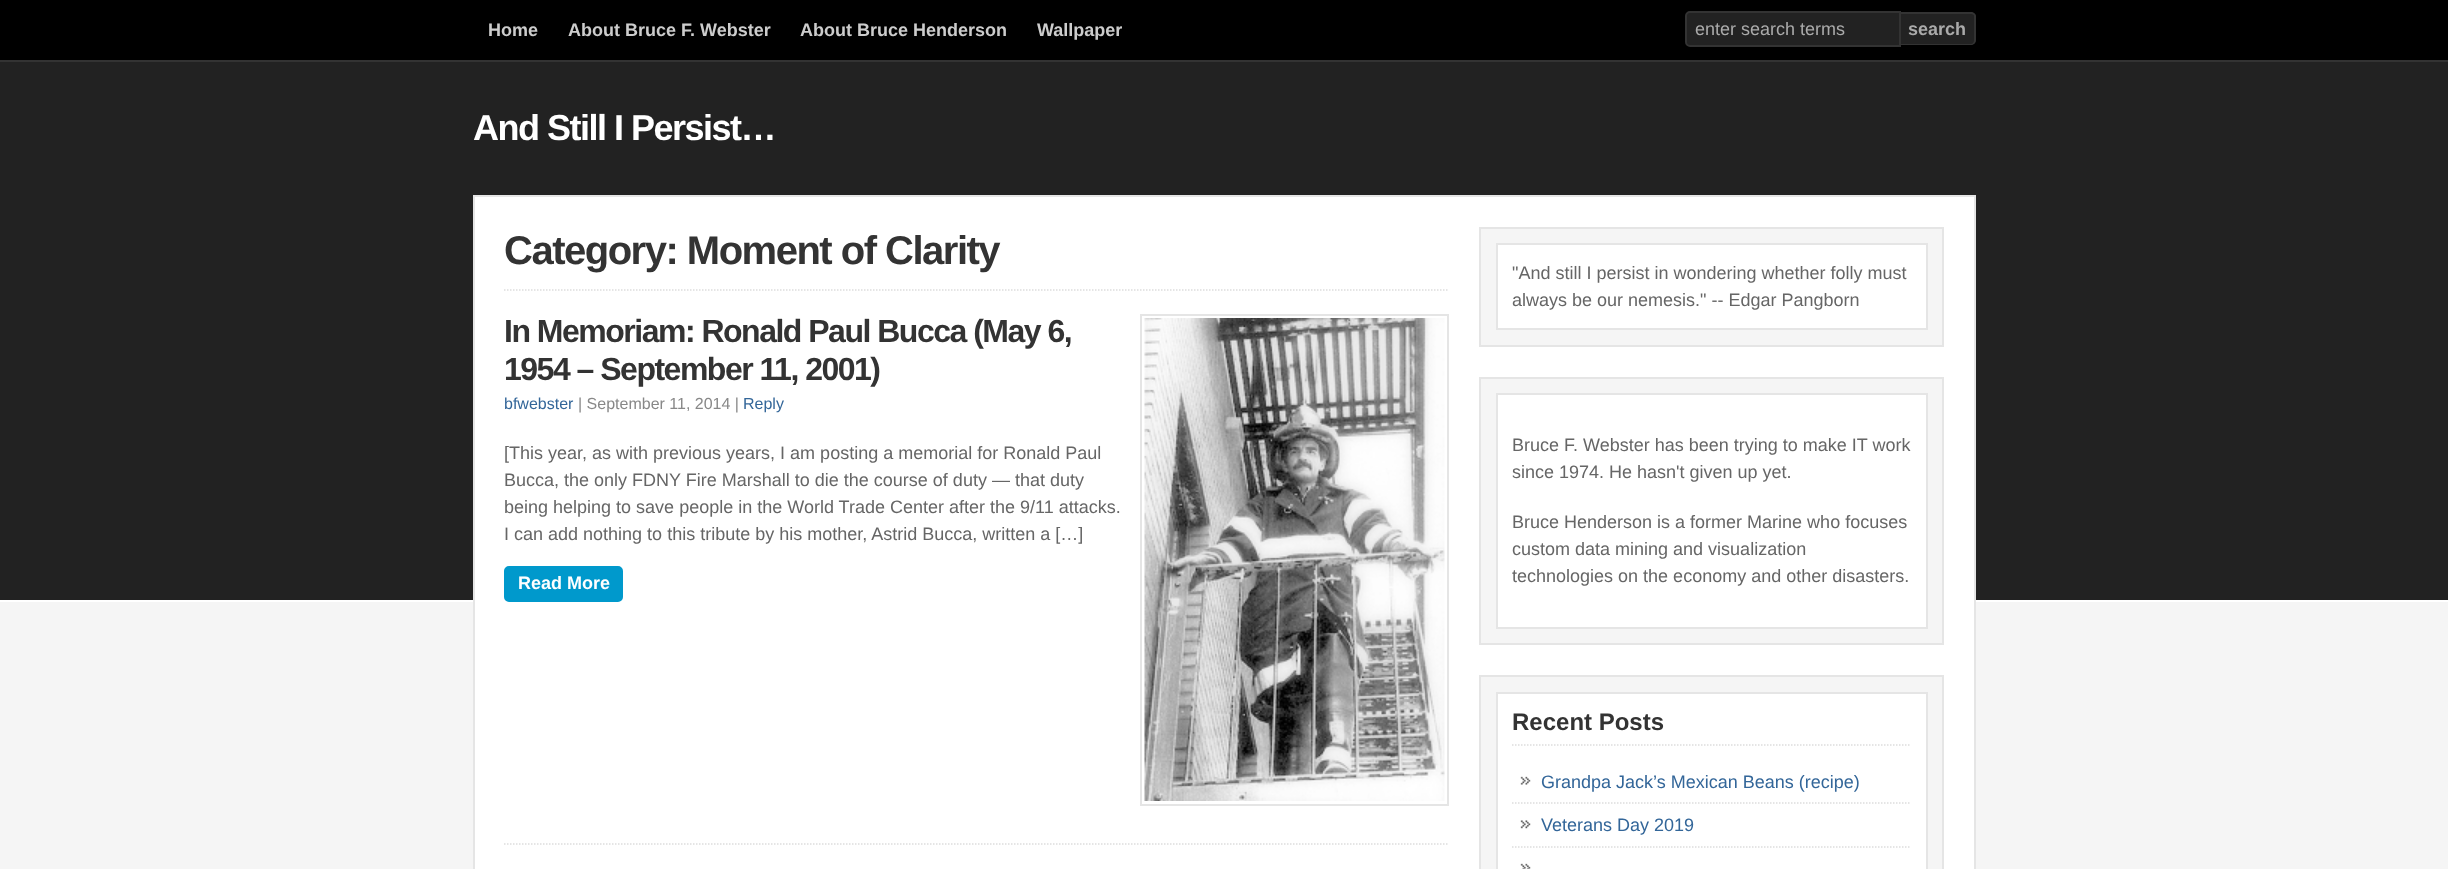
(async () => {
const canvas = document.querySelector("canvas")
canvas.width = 2448
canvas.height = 869
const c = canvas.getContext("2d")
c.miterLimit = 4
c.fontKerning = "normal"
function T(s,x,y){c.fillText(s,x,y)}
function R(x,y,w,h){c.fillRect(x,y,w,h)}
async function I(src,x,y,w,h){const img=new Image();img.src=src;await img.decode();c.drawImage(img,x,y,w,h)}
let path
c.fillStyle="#f5f5f5"
R(0,0,2448,869)
c.fillStyle="#000"
R(0,0,2448,60)
c.fillStyle="#333"
R(0,60,2448,2)
c.font="bold 18px Liberation Sans"
c.fillStyle="#ccc"
T("Home",488,36)
T("About Bruce F. Webster",568,36)
T("About Bruce Henderson",800,36)
T("Wallpaper",1037,36)
c.fillStyle="#222"
c.beginPath()
c.roundRect(1686,12,214,34,[4,0,0,4])
c.fill()
c.strokeStyle="#333"
c.lineWidth=2
c.stroke()
c.font="18px Liberation Sans"
c.fillStyle="#aaa"
T("enter search terms",1695,35)
c.fillStyle="#222"
c.beginPath()
c.roundRect(1901,12,75,33,[0,5,5,0])
c.fill()
c.fillStyle="#333"
path = new Path2D("M1900 12h71c2 0 5 2 5 4v24c0 3-3 5-5 5h-71zm0 2h71c2 0 3 1 3 2v24c0 2-1 4-3 4h-71z")
c.fill(path,"evenodd")
c.font="bold 18px Liberation Sans"
c.fillStyle="#aaa"
T("search",1908,35)
c.fillStyle="#222"
R(0,62,2448,538)
c.fillStyle="#fff"
R(0,600,2448,2)
c.letterSpacing="-1.5px"
c.font="bold 36px Liberation Sans"
T("And Still I Persist…",473,140)
c.beginPath()
c.rect(474,196,1501,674)
c.fill()
c.strokeStyle="#e5e5e5"
c.stroke()
path = new Path2D("M504 290h945")
c.strokeStyle="#ddd"
c.lineWidth=1.5
c.setLineDash([1.5,1.5])
c.stroke(path)
c.font="bold 40px Liberation Sans"
c.fillStyle="#333"
T("Category: Moment of Clarity",504,264)
path = new Path2D("M504 844h945")
c.stroke(path)
c.font="bold 32px Liberation Sans"
T("In Memoriam: Ronald Paul Bucca (May 6,",504,342)
T("1954 – September 11, 2001)",504,380)
c.strokeStyle="#e5e5e5"
c.lineWidth=2
c.setLineDash([])
c.strokeRect(1141,315,307,490)
await I("1.png",1144,318,301,483)
c.letterSpacing="0px"
c.font="16px Liberation Sans"
c.fillStyle="#369"
T("bfwebster",504,409)
c.fillStyle="#888"
T("| September 11, 2014 |",578,409)
c.fillStyle="#369"
T("Reply",743,409)
c.font="18px Liberation Sans"
c.fillStyle="#666"
T("[This year, as with previous years, I am posting a memorial for Ronald Paul",504,459)
T("Bucca, the only FDNY Fire Marshall to die the course of duty — that duty",504,486)
T("being helping to save people in the World Trade Center after the 9/11 attacks.",504,513)
T("I can add nothing to this tribute by his mother, Astrid Bucca, written a […]",504,540)
c.fillStyle="#09c"
c.beginPath()
c.roundRect(505,567,117,34,4)
c.fill()
c.strokeStyle="#09c"
c.stroke()
c.font="bold 18px Liberation Sans"
c.fillStyle="#fff"
T("Read More",518,589)
c.fillStyle="#f5f5f5"
c.beginPath()
c.rect(1480,228,463,118)
c.fill()
c.strokeStyle="#e5e5e5"
c.stroke()
c.fillStyle="#fff"
c.beginPath()
c.rect(1497,244,430,85)
c.fill()
c.stroke()
c.font="18px Liberation Sans"
c.fillStyle="#666"
T("\"And still I persist in wondering whether folly must",1512,279)
T("always be our nemesis.\" -- Edgar Pangborn",1512,306)
c.fillStyle="#f5f5f5"
c.beginPath()
c.rect(1480,378,463,266)
c.fill()
c.stroke()
c.fillStyle="#fff"
c.beginPath()
c.rect(1497,394,430,234)
c.fill()
c.stroke()
c.fillStyle="#666"
T("Bruce F. Webster has been trying to make IT work",1512,451)
T("since 1974. He hasn't given up yet.",1512,478)
T("Bruce Henderson is a former Marine who focuses",1512,528)
T("custom data mining and visualization",1512,555)
T("technologies on the economy and other disasters.",1512,582)
c.fillStyle="#f5f5f5"
c.beginPath()
c.rect(1480,676,463,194)
c.fill()
c.stroke()
c.fillStyle="#fff"
c.beginPath()
c.rect(1497,693,430,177)
c.fill()
c.stroke()
path = new Path2D("M1512 745h399")
c.strokeStyle="#ddd"
c.lineWidth=1.5
c.setLineDash([1.5,1.5])
c.stroke(path)
c.font="bold 24px Liberation Sans"
c.fillStyle="#333"
T("Recent Posts",1512,730)
await I("2.png",1520,776,11,9)
path = new Path2D("M1512 803h399")
c.stroke(path)
c.font="18px Liberation Sans"
c.fillStyle="#369"
T("Grandpa Jack’s Mexican Beans (recipe)",1541,788)
await I("3.png",1520,820,11,9)
path = new Path2D("M1512 847h399")
c.stroke(path)
T("Veterans Day 2019",1541,831)
await I("4.png",1520,863,11,6)
})()
